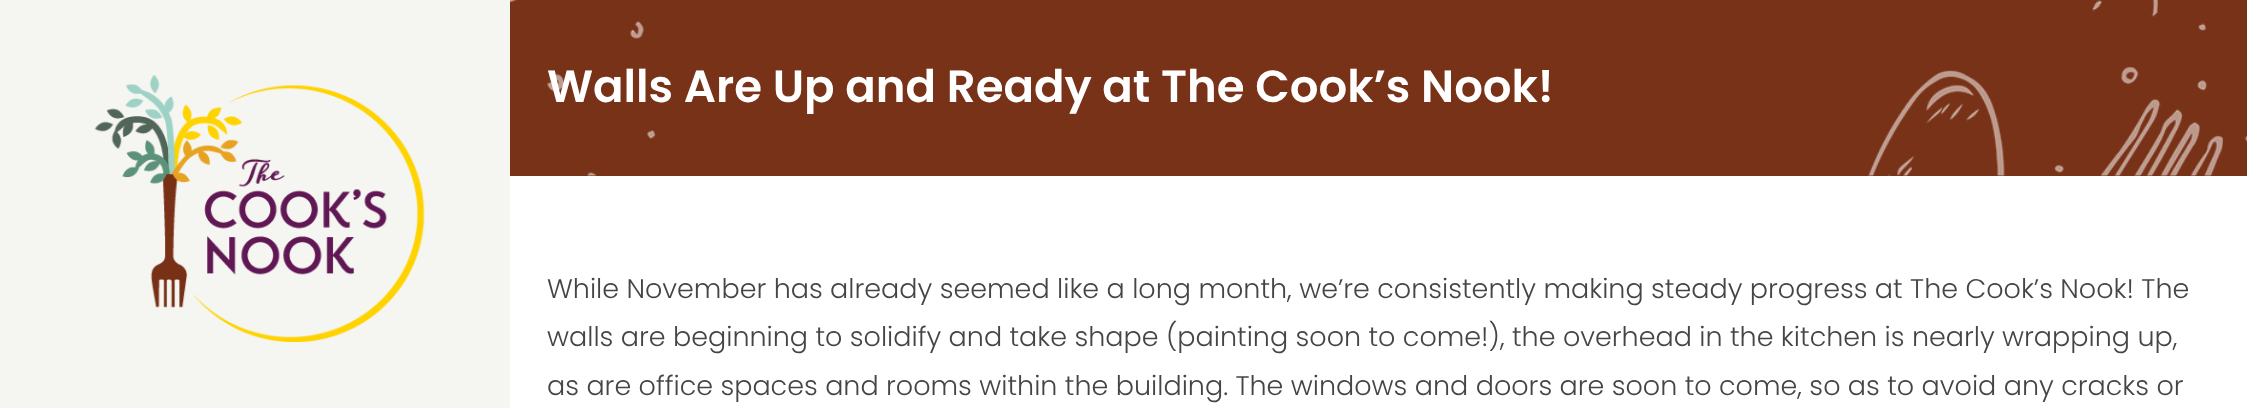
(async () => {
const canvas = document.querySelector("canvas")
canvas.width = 2247
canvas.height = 408
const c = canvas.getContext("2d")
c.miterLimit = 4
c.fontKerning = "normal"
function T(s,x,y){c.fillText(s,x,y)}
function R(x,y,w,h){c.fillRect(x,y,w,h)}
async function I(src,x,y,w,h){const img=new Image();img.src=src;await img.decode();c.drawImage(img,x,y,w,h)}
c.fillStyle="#fff"
R(0,0,2247,408)
c.fillStyle="#f5f5f1"
R(0,0,510,408)
await I("1.png",94,75,331,267)
c.fillStyle="#783217"
R(510,0,1737,176)
await I("2.png",510,0,1737,176)
c.font="600 45px Poppins"
c.fillStyle="#fff"
T("Walls Are Up and Ready at The Cook’s Nook!",547,102)
c.font="300 27px Poppins"
c.fillStyle="#454545"
T("While November has already seemed like a long month, we’re consistently making steady progress at The Cook’s Nook! The",547,298)
T("walls are beginning to solidify and take shape (painting soon to come!), the overhead in the kitchen is nearly wrapping up,",547,346)
T("as are office spaces and rooms within the building. The windows and doors are soon to come, so as to avoid any cracks or",547,395)
})()
